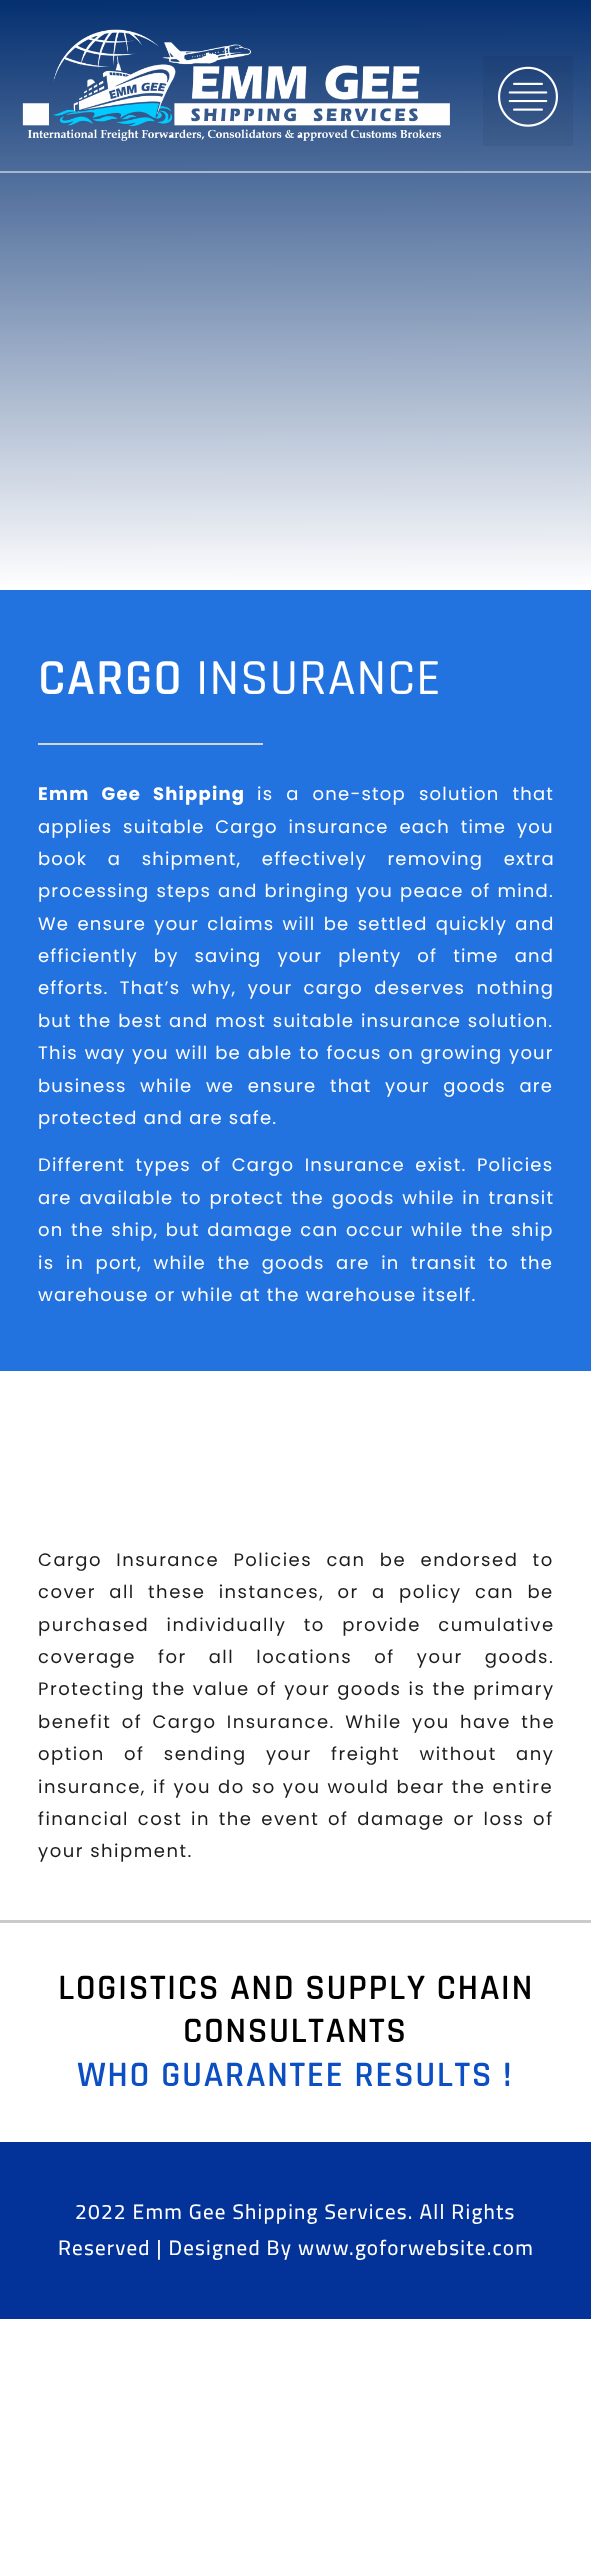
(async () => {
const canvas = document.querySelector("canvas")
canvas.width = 591
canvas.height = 2571
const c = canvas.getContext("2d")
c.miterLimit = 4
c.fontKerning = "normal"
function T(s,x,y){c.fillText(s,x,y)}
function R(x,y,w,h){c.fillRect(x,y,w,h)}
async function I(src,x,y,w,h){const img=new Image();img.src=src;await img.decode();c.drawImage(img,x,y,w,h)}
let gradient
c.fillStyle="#fff"
R(0,0,591,2571)
gradient = c.createLinearGradient(295,-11,296,590)
gradient.addColorStop(0,"#002c6e")
gradient.addColorStop(1,"#fff")
c.fillStyle = gradient
R(0,0,591,585)
c.fillStyle="#a6b6cd"
R(0,171,591,2)
await I("1.png",22,29,428,112)
c.fillStyle="#0000000d"
R(483,56,90,90)
await I("2.png",498,66,60,61)
c.fillStyle="#2272df"
R(0,590,591,781)
c.letterSpacing="1.2px"
c.font="600 51px Rajdhani"
c.fillStyle="#fff"
T("CARGO",38,694)
c.font="500 51px Rajdhani"
T("INSURANCE",196,694)
c.fillStyle="#d5d5d5"
R(38,743,225,2)
c.wordSpacing="7px"
c.font="bold 18px Poppins"
c.fillStyle="#fff"
T("Emm Gee Shipping",38,800)
c.font="18px Poppins"
T("is a one-stop solution that",257,800)
c.wordSpacing="4.75px"
T("applies suitable Cargo insurance each time you",38,833)
c.wordSpacing="14.5px"
T("book a shipment, effectively removing extra",38,865)
c.wordSpacing="1px"
T("processing steps and bringing you peace of mind.",38,897)
c.wordSpacing="2.25px"
T("We ensure your claims will be settled quickly and",38,930)
c.wordSpacing="10px"
T("efficiently by saving your plenty of time and",38,962)
c.wordSpacing="5.25px"
T("efforts. That’s why, your cargo deserves nothing",38,994)
c.wordSpacing="0.75px"
T("but the best and most suitable insurance solution.",38,1027)
T("This way you will be able to focus on growing your",38,1059)
c.wordSpacing="7.5px"
T("business while we ensure that your goods are",38,1092)
c.wordSpacing="0px"
T("protected and are safe.",38,1124)
c.wordSpacing="4.5px"
T("Different types of Cargo Insurance exist. Policies",38,1171)
c.wordSpacing="1.75px"
T("are available to protect the goods while in transit",38,1204)
c.wordSpacing="1.5px"
T("on the ship, but damage can occur while the ship",38,1236)
c.wordSpacing="5.5px"
T("is in port, while the goods are in transit to the",38,1269)
c.wordSpacing="0px"
T("warehouse or while at the warehouse itself.",38,1301)
c.letterSpacing="1.5px"
c.wordSpacing="8px"
c.fillStyle="#1d1d1d"
T("Cargo Insurance Policies can be endorsed to",38,1566)
c.wordSpacing="7px"
T("cover all these instances, or a policy can be",38,1598)
c.wordSpacing="11px"
T("purchased individually to provide cumulative",38,1631)
c.wordSpacing="15.75px"
T("coverage for all locations of your goods.",38,1663)
c.wordSpacing="0.75px"
T("Protecting the value of your goods is the primary",38,1695)
c.wordSpacing="4px"
T("benefit of Cargo Insurance. While you have the",38,1728)
c.wordSpacing="13px"
T("option of sending your freight without any",38,1760)
c.wordSpacing="0.75px"
T("insurance, if you do so you would bear the entire",38,1793)
c.wordSpacing="2.5px"
T("financial cost in the event of damage or loss of",38,1825)
c.wordSpacing="0px"
T("your shipment.",38,1857)
c.fillStyle="#cbcbcb"
R(0,1920,591,3)
c.font="600 36px Rajdhani"
c.fillStyle="#000"
T("LOGISTICS AND SUPPLY CHAIN",58,1999)
T("CONSULTANTS",183,2042)
c.fillStyle="#0b4fc2"
T("WHO GUARANTEE RESULTS !",77,2086)
c.fillStyle="#033398"
R(0,2142,591,177)
c.letterSpacing="1.2px"
c.font="500 21px Cairo"
c.fillStyle="#fff"
T("2022 Emm Gee Shipping Services. All Rights",75,2219)
T("Reserved | Designed By www.goforwebsite.com",58,2255)
})()
